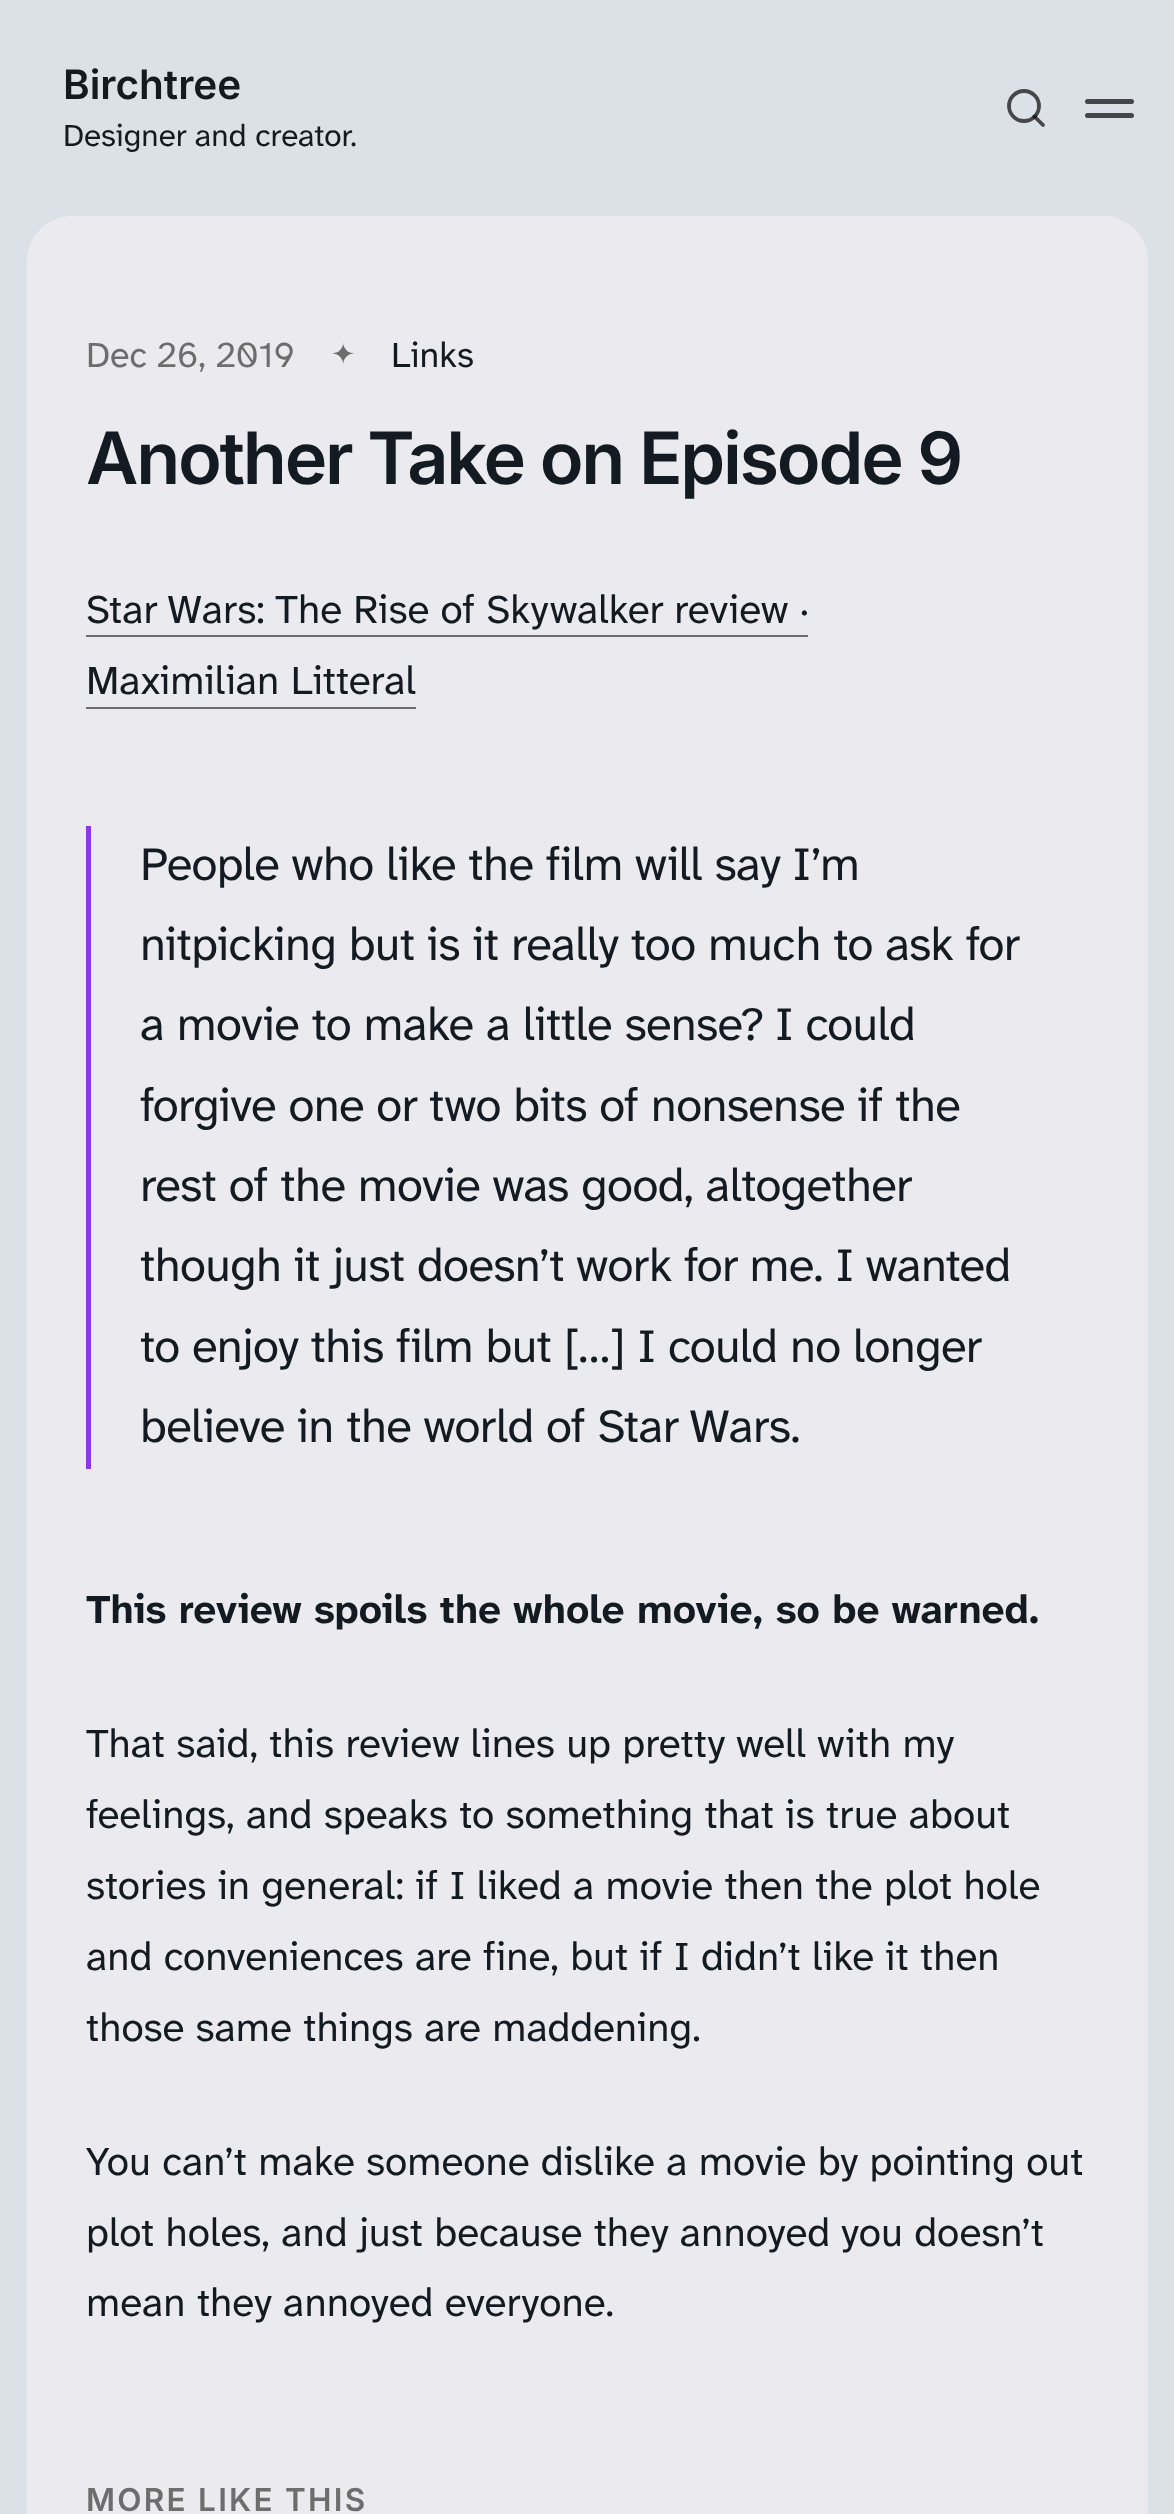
(async () => {
const canvas = document.querySelector("canvas")
canvas.width = 1174
canvas.height = 2514
const c = canvas.getContext("2d")
c.miterLimit = 4
c.fontKerning = "normal"
function T(s,x,y){c.fillText(s,x,y)}
function R(x,y,w,h){c.fillRect(x,y,w,h)}
function Q(x,y,w,h,r){c.beginPath();c.roundRect(x,y,w,h,r);c.fill()}
let path
c.fillStyle="#dce0e7"
R(0,0,1174,2514)
c.font="600 40.5px Inter"
c.fillStyle="#141a22"
T("Birchtree",63,99)
c.font="31.5px Atkinson Hyperlegible Next"
T("Designer and creator.",63,146)
c.beginPath()
c.arc(1024,106,15,0,7)
c.strokeStyle="#464749"
c.lineWidth=3.8
c.stroke()
path = new Path2D("M1043 125l-8.5-8.5")
c.strokeStyle="#050505b3"
c.lineCap="round"
c.lineJoin="round"
c.stroke(path)
c.fillStyle="#464749"
Q(1085,99,49,5,2.5)
Q(1085,113,49,5,2.5)
c.fillStyle="#ebebef"
Q(27,216,1121,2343,45)
c.font="36px Atkinson Hyperlegible Next"
c.fillStyle="#6d6d6e"
T("Dec 26, 2019",86,367)
c.font="29px DejaVu Sans"
T("✦",331,364)
c.font="36px Atkinson Hyperlegible Next"
c.fillStyle="#141a22"
T("Links",391,367)
c.letterSpacing="-2.25px"
c.font="600 72px Inter"
T("Another Take on Episode 9",86,484)
c.letterSpacing="0px"
c.font="40.5px Atkinson Hyperlegible Next"
T("Star Wars: The Rise of Skywalker review ·",86,623)
c.fillStyle="#6d6d6e"
R(86,635,722,2)
c.fillStyle="#141a22"
T("Maximilian Litteral",86,694)
c.fillStyle="#6d6d6e"
R(86,707,330,2)
c.fillStyle="#8839ef"
R(86,826,5,643)
c.letterSpacing="-0.65px"
c.font="47.25px Atkinson Hyperlegible Next"
c.fillStyle="#141a22"
T("People who like the film will say I’m",140,880)
T("nitpicking but is it really too much to ask for",140,960)
T("a movie to make a little sense? I could",140,1040)
T("forgive one or two bits of nonsense if the",140,1121)
T("rest of the movie was good, altogether",140,1201)
T("though it just doesn’t work for me. I wanted",140,1281)
T("to enjoy this film but […] I could no longer",140,1362)
T("believe in the world of Star Wars.",140,1442)
c.letterSpacing="0px"
c.font="bold 40.5px Atkinson Hyperlegible Next"
T("This review spoils the whole movie, so be warned.",86,1623)
c.font="40.5px Atkinson Hyperlegible Next"
T("That said, this review lines up pretty well with my",86,1757)
T("feelings, and speaks to something that is true about",86,1828)
T("stories in general: if I liked a movie then the plot hole",86,1899)
T("and conveniences are fine, but if I didn’t like it then",86,1970)
T("those same things are maddening.",86,2041)
T("You can’t make someone dislike a movie by pointing out",86,2175)
T("plot holes, and just because they annoyed you doesn’t",86,2246)
T("mean they annoyed everyone.",86,2316)
c.letterSpacing="2.25px"
c.font="600 31.5px Inter"
c.fillStyle="#6d6d6e"
T("MORE LIKE THIS",86,2511)
})()
